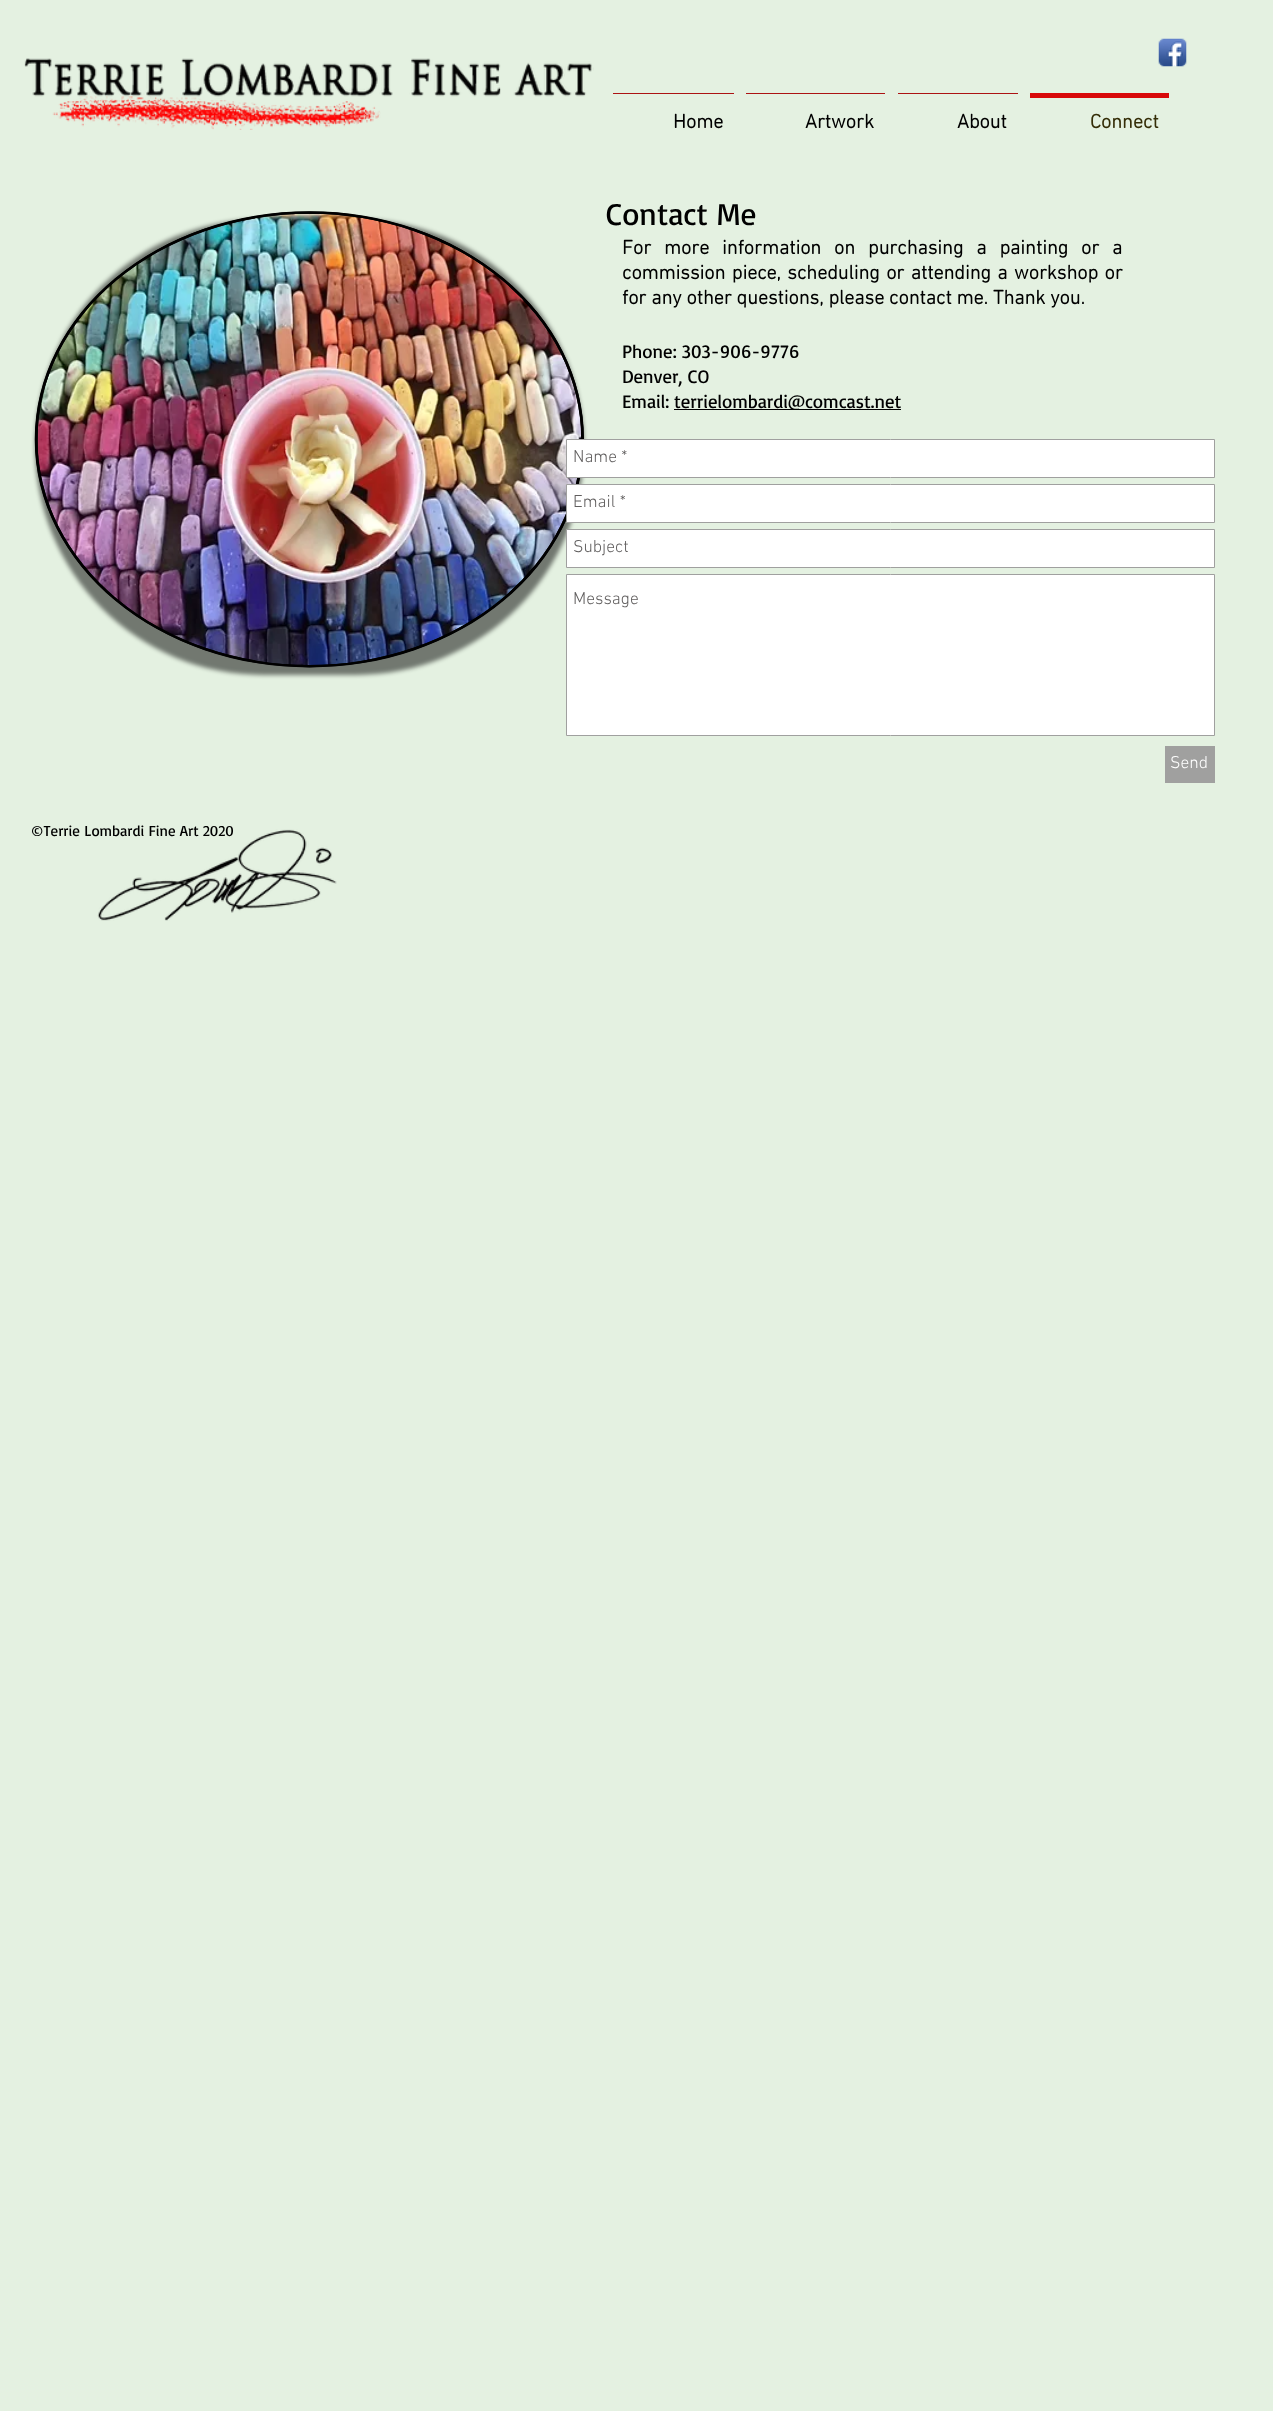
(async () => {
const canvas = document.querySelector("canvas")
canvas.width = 1273
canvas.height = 2411
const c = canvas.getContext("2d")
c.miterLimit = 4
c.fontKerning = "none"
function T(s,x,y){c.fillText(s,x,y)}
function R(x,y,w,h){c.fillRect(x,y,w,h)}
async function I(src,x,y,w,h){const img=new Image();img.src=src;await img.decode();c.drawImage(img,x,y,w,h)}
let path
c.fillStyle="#e4f1e1"
R(0,0,1273,2411)
await I("1.png",1158,38,29,29)
await I("2.png",24,58,570,72)
c.fillStyle="#ac1313"
R(613,93,121,1)
c.font="bold 20px 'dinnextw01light'"
c.fillStyle="#000"
T("Home",673,128)
c.fillStyle="#ac1313"
R(746,93,139,1)
c.fillStyle="#000"
T("Artwork",805,128)
c.fillStyle="#ac1313"
R(898,93,120,1)
c.fillStyle="#000"
T("About",957,128)
c.fillStyle="#d80909"
R(1030,93,139,5)
c.fillStyle="#352e08"
T("Connect",1090,128)
c.fillStyle="#00000080"
c.filter="blur(2px)"
c.beginPath()
c.roundRect(35,219,549,456,228)
c.fill()
c.filter="none"
c.fillStyle="#000"
c.beginPath()
c.ellipse(309.5,439.5,274.5,228,0,0,7)
c.fill()
path = new Path2D("M309.5 212.5c150.5 0 273 101.5 273 227c0 125-122.5 226.5-273 226.5c-151 0-273.5-101.5-273.5-226.5c0-125.5 122.5-227 273.5-227z")
c.strokeStyle="#000"
c.lineWidth=2.5
c.stroke(path)
await I("3.png",37,214,544,451)
c.font="31.25px Basic"
T("Contact Me",606,225)
c.wordSpacing="8px"
c.font="bold 20px 'dinnextw01light'"
T("For more information on purchasing a painting or a",622,254)
c.wordSpacing="1.5px"
T("commission piece, scheduling or attending a workshop or",622,279)
c.wordSpacing="0px"
T("for any other questions, please contact me. Thank you.",622,304)
c.font="18.75px Basic"
T("Phone: 303-906-9776",622,358)
T("Denver, CO",622,383)
T("Email:",622,408)
R(674,409,227,1)
T("terrielombardi@comcast.net",674,408)
c.fillStyle="#fff"
c.beginPath()
c.rect(566.5,439.5,648,38)
c.fill()
c.strokeStyle="#a0a09f"
c.lineWidth=1
c.stroke()
c.font="300 17.5px 'dinnextw01light'"
c.fillStyle="#605e5e"
T("Name *",573,462)
c.fillStyle="#fff"
c.beginPath()
c.rect(566.5,484.5,648,38)
c.fill()
c.stroke()
c.fillStyle="#605e5e"
T("Email *",573,507)
c.fillStyle="#fff"
c.beginPath()
c.rect(566.5,529.5,648,38)
c.fill()
c.stroke()
c.fillStyle="#605e5e"
T("Subject",573,552)
c.fillStyle="#fff"
c.beginPath()
c.rect(566.5,574.5,648,161)
c.fill()
c.stroke()
c.fillStyle="#605e5e"
T("Message",573,604)
c.fillStyle="#a0a09f"
R(1165,746,50,37)
c.fillStyle="#fff"
T("Send",1170,768)
c.font="15px Basic"
c.fillStyle="#000"
T("©Terrie Lombardi Fine Art 2020",31,836)
await I("4.png",97,829,240,92)
})()
